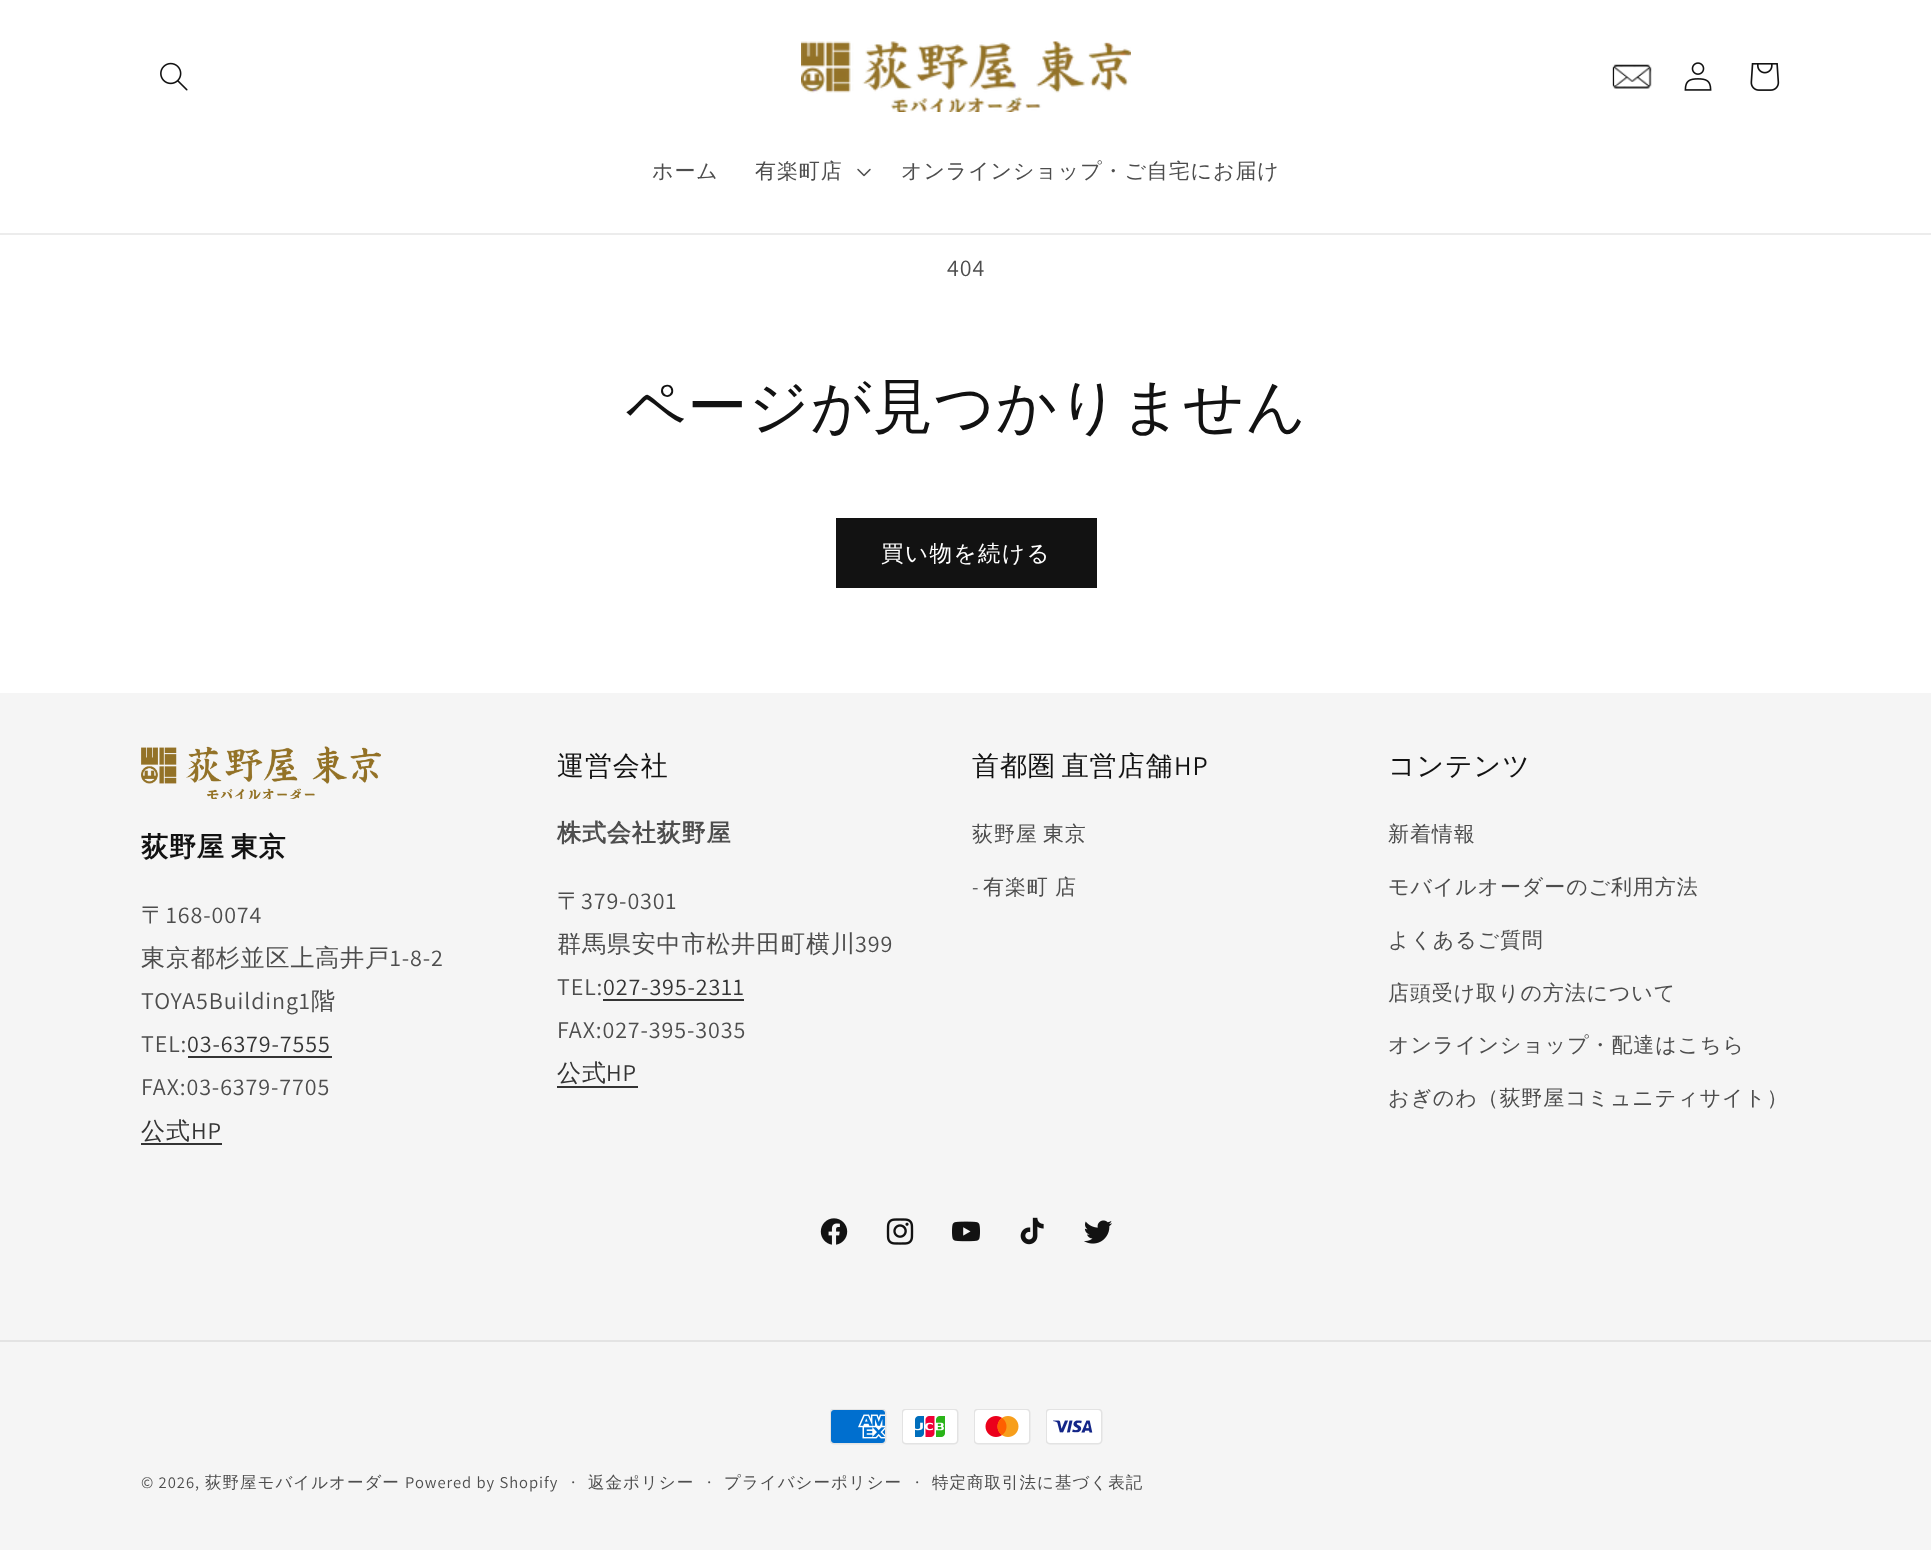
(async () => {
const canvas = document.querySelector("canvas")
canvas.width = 1931
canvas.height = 1550
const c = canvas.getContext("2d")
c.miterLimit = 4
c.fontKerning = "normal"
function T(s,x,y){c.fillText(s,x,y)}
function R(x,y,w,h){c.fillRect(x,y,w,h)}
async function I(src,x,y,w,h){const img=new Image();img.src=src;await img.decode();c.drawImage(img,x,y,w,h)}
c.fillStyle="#fff"
R(0,0,1931,1550)
c.fillStyle="#ececec"
R(0,233,1931,2)
await I("1.png",160,62,28,29)
await I("2.png",801,41,330,71)
await I("3.png",1612,64,40,25)
await I("4.png",1684,62,28,29)
await I("5.png",1750,63,30,28)
c.letterSpacing="0.9px"
c.font="500 21px WenQuanYi Zen Hei"
c.fillStyle="#4d4d4d"
T("ホーム",652,178)
T("有楽町店",755,178)
await I("6.png",857,168,14,9)
T("オンラインショップ・ご自宅にお届け",901,178)
c.font="24px Assistant"
T("404",947,276)
c.font="500 60px WenQuanYi Zen Hei"
c.fillStyle="#121212"
T("ページが見つかりません",625,427)
R(836,518,261,70)
c.letterSpacing="1.5px"
c.font="500 22.5px WenQuanYi Zen Hei"
c.fillStyle="#fff"
T("買い物を続ける",881,561)
c.fillStyle="#f5f5f5"
R(0,693,1931,857)
await I("7.png",141,746,240,53)
c.letterSpacing="0.9px"
c.wordSpacing="-3px"
c.font="bold 27px WenQuanYi Zen Hei"
c.fillStyle="#121212"
T("荻野屋 東京",141,856)
c.wordSpacing="0px"
c.font="500 24px WenQuanYi Zen Hei"
c.fillStyle="#4d4d4d"
T("〒",141,923)
c.font="24px Assistant"
T("168-0074",166,923)
c.font="500 24px WenQuanYi Zen Hei"
T("東京都杉並区上高井戸",141,966)
c.font="24px Assistant"
T("1-8-2",390,966)
T("TOYA5Building1",141,1009)
c.font="500 24px WenQuanYi Zen Hei"
T("階",311,1009)
c.font="24px Assistant"
T("TEL:",141,1052)
c.fillStyle="#343434"
T("03-6379-7555",187,1052)
R(188,1056,144,2)
c.fillStyle="#4d4d4d"
T("FAX:03-6379-7705",141,1095)
c.font="500 24px WenQuanYi Zen Hei"
c.fillStyle="#343434"
T("公式",141,1139)
R(141,1143,81,2)
c.font="24px Assistant"
T("HP",191,1139)
c.font="500 27px WenQuanYi Zen Hei"
c.fillStyle="#121212"
T("運営会社",557,775)
c.font="bold 24px WenQuanYi Zen Hei"
c.fillStyle="#4d4d4d"
T("株式会社荻野屋",557,841)
c.font="500 24px WenQuanYi Zen Hei"
T("〒",557,909)
c.font="24px Assistant"
T("379-0301",581,909)
c.font="500 24px WenQuanYi Zen Hei"
T("群馬県安中市松井田町横川",557,952)
c.font="24px Assistant"
T("399",855,952)
T("TEL:",557,995)
c.fillStyle="#343434"
T("027-395-2311",603,995)
R(603,999,141,2)
c.fillStyle="#4d4d4d"
T("FAX:027-395-3035",557,1038)
c.font="500 24px WenQuanYi Zen Hei"
c.fillStyle="#343434"
T("公式",557,1081)
R(557,1086,81,2)
c.font="24px Assistant"
T("HP",606,1081)
c.wordSpacing="-3px"
c.font="500 27px WenQuanYi Zen Hei"
c.fillStyle="#121212"
T("首都圏 直営店舗",972,775)
c.wordSpacing="0px"
c.font="27px Assistant"
T("HP",1174,775)
c.wordSpacing="-2px"
c.font="500 21px WenQuanYi Zen Hei"
c.fillStyle="#4d4d4d"
T("荻野屋 東京",972,841)
c.wordSpacing="0px"
c.font="21px Assistant"
T("-",972,894)
c.wordSpacing="-1px"
c.font="500 21px WenQuanYi Zen Hei"
T("有楽町 店",983,894)
c.wordSpacing="0px"
c.font="500 27px WenQuanYi Zen Hei"
c.fillStyle="#121212"
T("コンテンツ",1388,775)
c.font="500 21px WenQuanYi Zen Hei"
c.fillStyle="#4d4d4d"
T("新着情報",1388,841)
T("モバイルオーダーのご利用方法",1388,894)
T("よくあるご質問",1388,947)
T("店頭受け取りの方法について",1388,1000)
T("オンラインショップ・配達はこちら",1388,1052)
T("おぎのわ（荻野屋コミュニティサイト）",1388,1105)
await I("8.png",820,1218,28,27)
await I("9.png",886,1218,28,27)
await I("10.png",952,1221,28,21)
await I("11.png",1020,1217,24,28)
await I("12.png",1084,1220,28,24)
c.fillStyle="#e3e3e3"
R(0,1340,1931,2)
await I("13.png",830,1409,57,36)
await I("14.png",902,1409,57,36)
await I("15.png",974,1409,57,36)
await I("16.png",1046,1409,57,36)
c.letterSpacing="1px"
c.font="16.5px Assistant"
c.fillStyle="#4d4d4d"
T("© 2026,",141,1488)
c.font="500 16.5px WenQuanYi Zen Hei"
T("荻野屋モバイルオーダー",205,1488)
c.font="16.5px Assistant"
T("Powered by Shopify",405,1488)
c.font="18px Assistant"
T("·",571,1488)
c.font="500 16.5px WenQuanYi Zen Hei"
T("返金ポリシー",588,1488)
c.font="18px Assistant"
T("·",707,1488)
c.font="500 16.5px WenQuanYi Zen Hei"
T("プライバシーポリシー",724,1488)
c.font="18px Assistant"
T("·",915,1488)
c.font="500 16.5px WenQuanYi Zen Hei"
T("特定商取引法に基づく表記",932,1488)
})()
